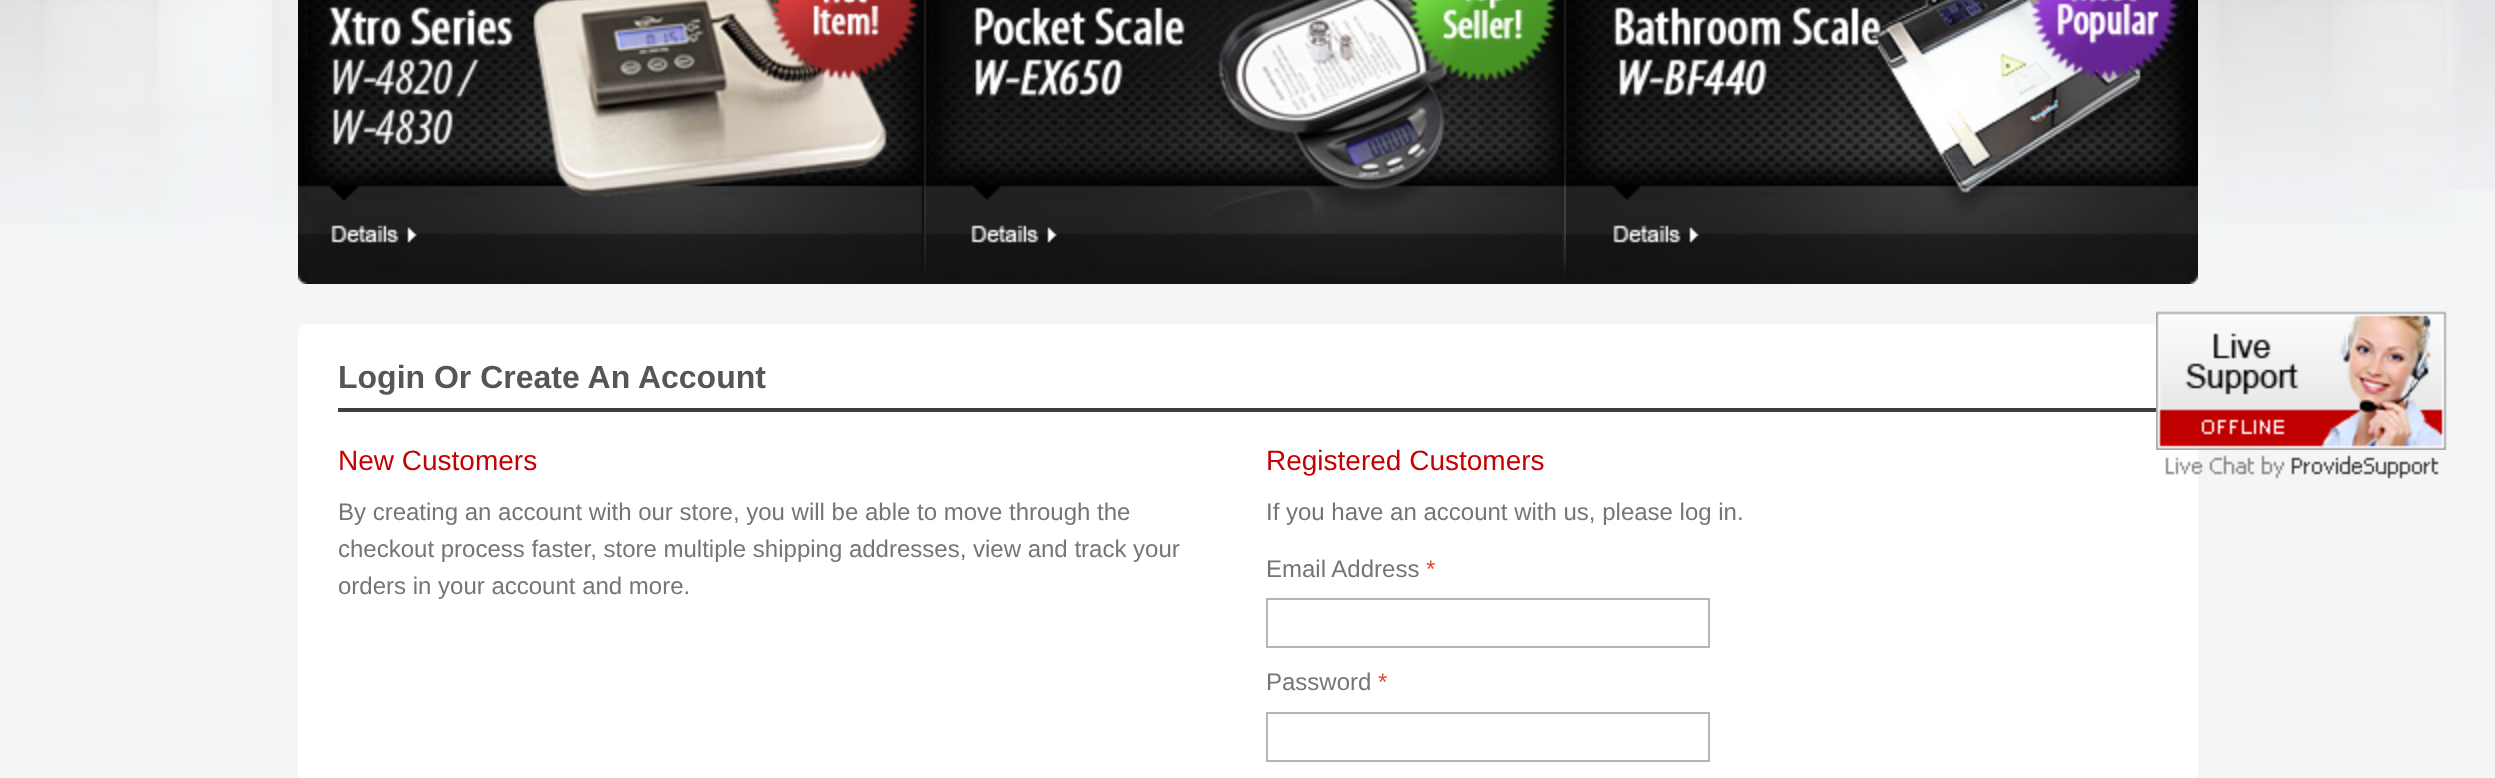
(async () => {
const canvas = document.querySelector("canvas")
canvas.width = 2495
canvas.height = 778
const c = canvas.getContext("2d")
c.miterLimit = 4
c.fontKerning = "normal"
function T(s,x,y){c.fillText(s,x,y)}
function R(x,y,w,h){c.fillRect(x,y,w,h)}
async function I(src,x,y,w,h){const img=new Image();img.src=src;await img.decode();c.drawImage(img,x,y,w,h)}
c.fillStyle="#f3f5f6"
R(0,0,2495,778)
await I("1.png",2428,0,67,190)
await I("2.png",0,0,2495,225)
await I("3.png",298,0,1900,284)
await I("4.png",308,0,618,284)
await I("5.png",934,0,632,279)
await I("6.png",1572,0,616,284)
await I("7.png",298,324,1900,200)
c.fillStyle="#fff"
R(298,524,1900,254)
c.fillStyle="#3e3e3e"
R(338,408,1820,4)
c.font="bold 32px Liberation Sans"
c.fillStyle="#565656"
T("Login Or Create An Account",338,388)
c.font="28px Liberation Sans"
c.fillStyle="#c40000"
T("New Customers",338,470)
c.font="24px Liberation Sans"
c.fillStyle="#747675"
T("By creating an account with our store, you will be able to move through the",338,520)
T("checkout process faster, store multiple shipping addresses, view and track your",338,557)
T("orders in your account and more.",338,594)
c.font="28px Liberation Sans"
c.fillStyle="#c40000"
T("Registered Customers",1266,470)
c.font="24px Liberation Sans"
c.fillStyle="#747675"
T("If you have an account with us, please log in.",1266,520)
T("Email Address",1266,577)
c.fillStyle="#dc4e2a"
T("*",1426,577)
c.strokeStyle="#b5b5b5"
c.lineWidth=2
c.strokeRect(1267,599,442,48)
c.fillStyle="#747675"
T("Password",1266,690)
c.fillStyle="#dc4e2a"
T("*",1378,690)
c.strokeRect(1267,713,442,48)
await I("8.png",2156,311,291,139)
await I("9.png",2165,455,274,24)
})()
